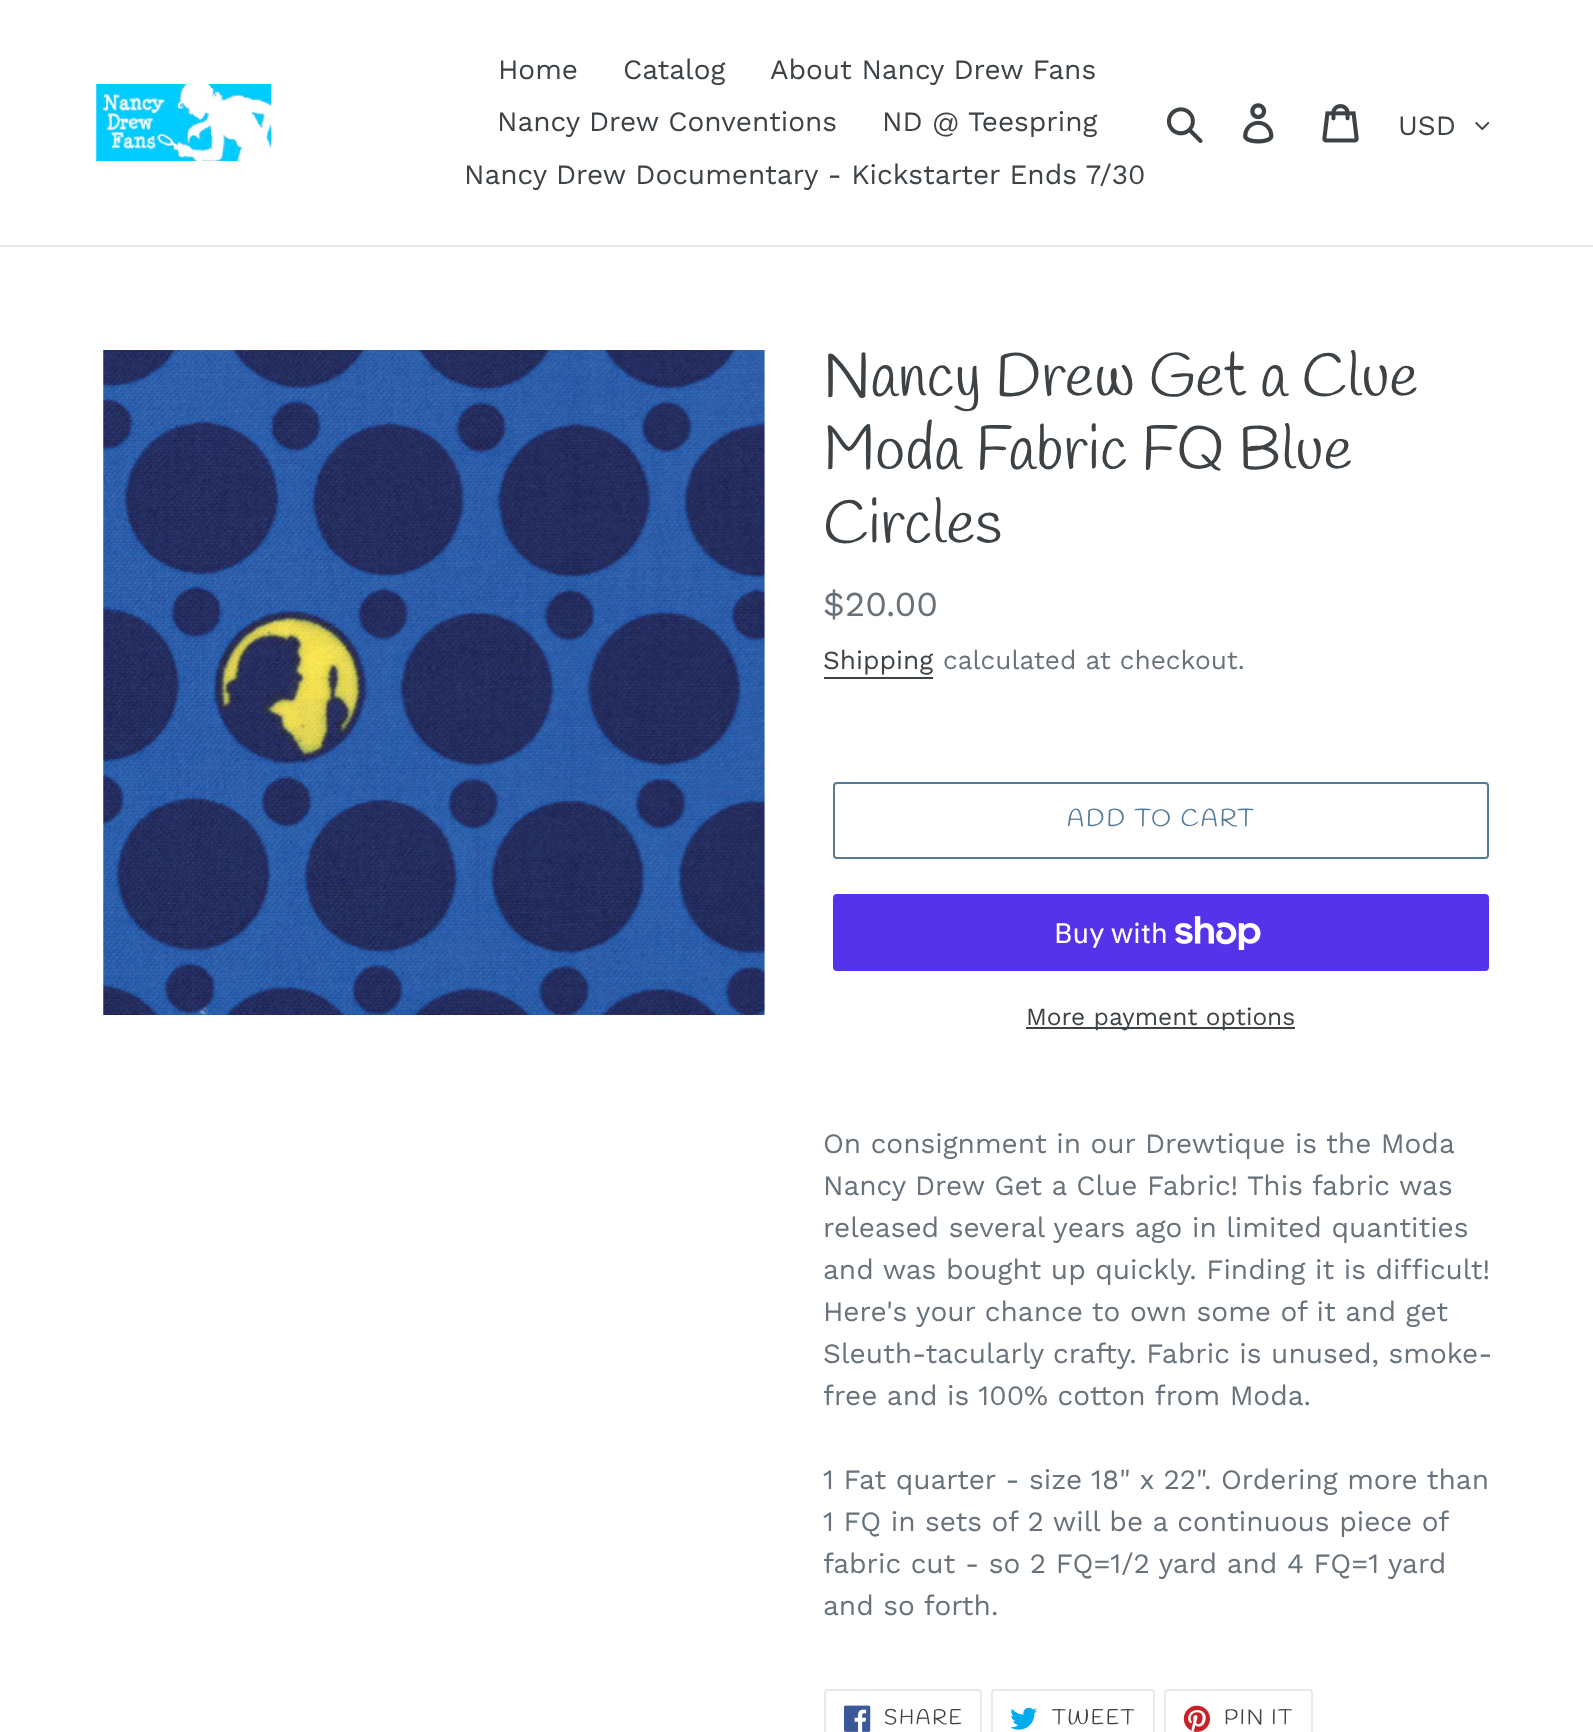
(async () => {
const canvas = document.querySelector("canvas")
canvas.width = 1593
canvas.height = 1732
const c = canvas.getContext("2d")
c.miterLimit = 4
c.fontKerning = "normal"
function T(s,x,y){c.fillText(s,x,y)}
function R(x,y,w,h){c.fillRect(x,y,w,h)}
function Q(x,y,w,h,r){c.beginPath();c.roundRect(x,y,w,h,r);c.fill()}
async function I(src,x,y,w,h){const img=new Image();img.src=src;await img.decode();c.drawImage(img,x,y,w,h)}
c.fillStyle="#fff"
R(0,0,1593,1732)
c.fillStyle="#e8e9eb"
R(0,245,1593,2)
await I("1.png",96,84,176,77)
c.font="28px Work Sans"
c.fillStyle="#3d4246"
T("Home",498,79)
T("Catalog",623,79)
T("About Nancy Drew Fans",770,79)
T("Nancy Drew Conventions",497,131)
T("ND @ Teespring",882,131)
T("Nancy Drew Documentary - Kickstarter Ends 7/30",464,184)
await I("2.png",1166,107,37,36)
await I("3.png",1243,103,31,41)
await I("4.png",1322,104,37,39)
T("USD",1398,135)
await I("5.png",1475,122,14,8)
await I("6.png",103,350,662,665)
c.font="61.25px Handlee"
T("Nancy Drew Get a Clue",823,396)
T("Moda Fabric FQ Blue",823,469)
T("Circles",823,543)
c.font="35px Work Sans"
c.fillStyle="#69727b"
T("$20.00",823,616)
c.font="26.25px Work Sans"
c.fillStyle="#3d4246"
T("Shipping",823,669)
R(824,677,109,2)
c.fillStyle="#69727b"
T("calculated at checkout.",943,669)
c.beginPath()
c.roundRect(834,783,654,75,3)
c.strokeStyle="#557b97"
c.lineWidth=2
c.stroke()
c.letterSpacing="2px"
c.font="24.5px Handlee"
c.fillStyle="#557b97"
T("ADD TO CART",1067,826)
c.fillStyle="#5433eb"
Q(833,894,656,77,4)
c.letterSpacing="0px"
c.font="28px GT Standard"
c.fillStyle="#fff"
T("Buy with",1054,943)
await I("7.png",1175,916,86,34)
c.fillStyle="#3d4246"
R(1026,1027,269,2)
c.font="24.5px Work Sans"
T("More payment options",1026,1025)
c.font="28px Work Sans"
c.fillStyle="#69727b"
T("On consignment in our Drewtique is the Moda",823,1153)
T("Nancy Drew Get a Clue Fabric! This fabric was",823,1195)
T("released several years ago in limited quantities",823,1237)
T("and was bought up quickly. Finding it is difficult!",823,1279)
T("Here's your chance to own some of it and get",823,1321)
T("Sleuth-tacularly crafty. Fabric is unused, smoke-",823,1363)
T("free and is 100% cotton from Moda.",823,1405)
T("1 Fat quarter - size 18\" x 22\". Ordering more than",823,1489)
T("1 FQ in sets of 2 will be a continuous piece of",823,1531)
T("fabric cut - so 2 FQ=1/2 yard and 4 FQ=1 yard",823,1573)
T("and so forth.",823,1615)
c.beginPath()
c.roundRect(825,1690,156,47,3)
c.strokeStyle="#e8e9eb"
c.stroke()
await I("8.png",844,1705,27,27)
c.letterSpacing="1.75px"
c.font="21px Handlee"
c.fillStyle="#3d4246"
T("SHARE",884,1724)
c.beginPath()
c.roundRect(992,1690,162,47,3)
c.stroke()
await I("9.png",1010,1707,27,23)
T("TWEET",1052,1724)
c.beginPath()
c.roundRect(1165,1690,147,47,3)
c.stroke()
await I("10.png",1183,1705,28,27)
T("PIN IT",1224,1724)
})()
